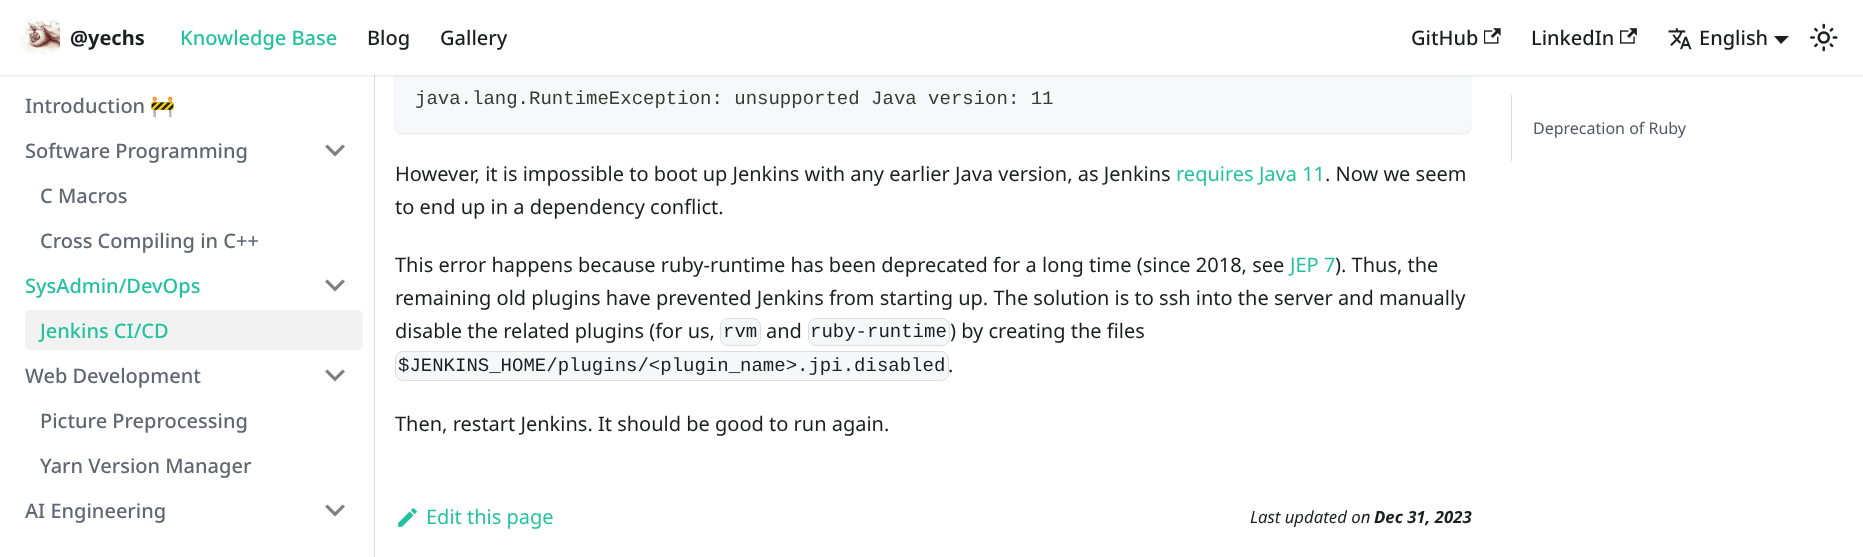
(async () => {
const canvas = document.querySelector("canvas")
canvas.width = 1863
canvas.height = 557
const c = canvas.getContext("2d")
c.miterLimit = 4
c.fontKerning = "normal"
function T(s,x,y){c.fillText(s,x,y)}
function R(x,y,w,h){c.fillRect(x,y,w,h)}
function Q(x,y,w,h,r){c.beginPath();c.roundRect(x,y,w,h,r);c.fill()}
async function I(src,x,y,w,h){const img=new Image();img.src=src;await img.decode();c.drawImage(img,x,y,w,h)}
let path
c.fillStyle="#fff"
R(0,0,1863,557)
c.fillStyle="#dadde1"
R(374,75,1,482)
c.fillStyle="#0000001a"
c.filter="blur(1px)"
c.beginPath()
c.roundRect(395,39,1076,95,8)
c.fill()
c.filter="none"
c.fillStyle="#f6f8fa"
Q(395,38,1076,95,8)
c.fillStyle="#0000001a"
c.filter="blur(1px)"
c.beginPath()
c.rect(0,1,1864,75)
c.fill()
c.filter="none"
c.fillStyle="#fff"
R(0,0,1863,75)
await I("1.png",20,17,40,39)
c.font="bold 20px Noto Sans"
c.fillStyle="#1c1e21"
T("@yechs",70,45)
c.font="500 20px Noto Sans"
c.fillStyle="#25c2a0"
T("Knowledge Base",180,45)
c.fillStyle="#1c1e21"
T("Blog",367,45)
T("Gallery",440,45)
T("GitHub",1411,45)
await I("2.png",1484,28,17,16)
T("LinkedIn",1531,45)
await I("3.png",1620,28,17,16)
await I("4.png",1668,28,24,22)
T("English",1699,45)
path = new Path2D("M1774 36h15l-8 8z")
c.fill(path)
await I("5.png",1810,23,28,29)
c.fillStyle="#606770"
T("Introduction",25,113)
c.font="20px Noto Color Emoji"
T("🚧",150,113)
c.font="500 20px Noto Sans"
T("Software Programming",25,158)
c.fillStyle="#808080"
path = new Path2D("M342.5 144.5l-7.5 7.5l-7.5-7.5l-2.5 2l10 10l10-10z")
c.fill(path)
c.fillStyle="#606770"
T("C Macros",40,203)
T("Cross Compiling in C++",40,248)
c.fillStyle="#25c2a0"
T("SysAdmin/DevOps",25,293)
c.fillStyle="#808080"
path = new Path2D("M342.5 279.5l-7.5 7.5l-7.5-7.5l-2.5 2l10 10l10-10z")
c.fill(path)
c.fillStyle="#f2f2f2"
Q(25,310,338,40,5)
c.fillStyle="#25c2a0"
T("Jenkins CI/CD",40,338)
c.fillStyle="#606770"
T("Web Development",25,383)
c.fillStyle="#808080"
path = new Path2D("M342.5 369.5l-7.5 7.5l-7.5-7.5l-2.5 2l10 10l10-10z")
c.fill(path)
c.fillStyle="#606770"
T("Picture Preprocessing",40,428)
T("Yarn Version Manager",40,473)
T("AI Engineering",25,518)
c.fillStyle="#808080"
path = new Path2D("M342.5 504.5l-7.5 7.5l-7.5-7.5l-2.5 2l10 10l10-10z")
c.fill(path)
c.font="19px Liberation Mono"
c.fillStyle="#393a34"
T("java.lang.RuntimeException: unsupported Java version: 11",415,104)
c.font="20px Noto Sans"
c.fillStyle="#1c1e21"
T("However, it is impossible to boot up Jenkins with any earlier Java version, as Jenkins",395,181)
c.fillStyle="#25c2a0"
T("requires Java 11",1176,181)
c.fillStyle="#1c1e21"
T(". Now we seem",1325,181)
T("to end up in a dependency conflict.",395,214)
T("This error happens because ruby-runtime has been deprecated for a long time (since 2018, see",395,272)
c.fillStyle="#25c2a0"
T("JEP 7",1290,272)
c.fillStyle="#1c1e21"
T("). Thus, the",1335,272)
T("remaining old plugins have prevented Jenkins from starting up. The solution is to ssh into the server and manually",395,305)
T("disable the related plugins (for us,",395,338)
c.fillStyle="#f6f7f8"
Q(720,318,41,28,8)
c.beginPath()
c.roundRect(720.5,318.5,40,27,7.5)
c.strokeStyle="#0000001a"
c.stroke()
c.font="19px Liberation Mono"
c.fillStyle="#1c1e21"
T("rvm",723,337)
c.font="20px Noto Sans"
T("and",766,338)
c.fillStyle="#f6f7f8"
Q(808,318,142,28,8)
c.beginPath()
c.roundRect(808.5,318.5,141,27,7.5)
c.stroke()
c.font="19px Liberation Mono"
c.fillStyle="#1c1e21"
T("ruby-runtime",810,337)
c.font="20px Noto Sans"
T(") by creating the files",950,338)
c.fillStyle="#f6f7f8"
Q(395,351,554,30,8)
c.beginPath()
c.roundRect(395.5,351.5,553,29,7.5)
c.stroke()
c.font="19px Liberation Mono"
c.fillStyle="#1c1e21"
T("$JENKINS_HOME/plugins/<plugin_name>.jpi.disabled",398,371)
c.font="20px Noto Sans"
T(".",948,372)
T("Then, restart Jenkins. It should be good to run again.",395,431)
await I("6.png",398,508,19,19)
c.fillStyle="#25c2a0"
T("Edit this page",426,524)
c.font="italic 16.75px Noto Sans"
c.fillStyle="#1c1e21"
T("Last updated on",1250,523)
c.font="italic bold 16.75px Noto Sans"
T("Dec 31, 2023",1374,523)
c.fillStyle="#dadde1"
R(1511,95,1,66)
c.font="16px Noto Sans"
c.fillStyle="#525860"
T("Deprecation of Ruby",1533,134)
})()
